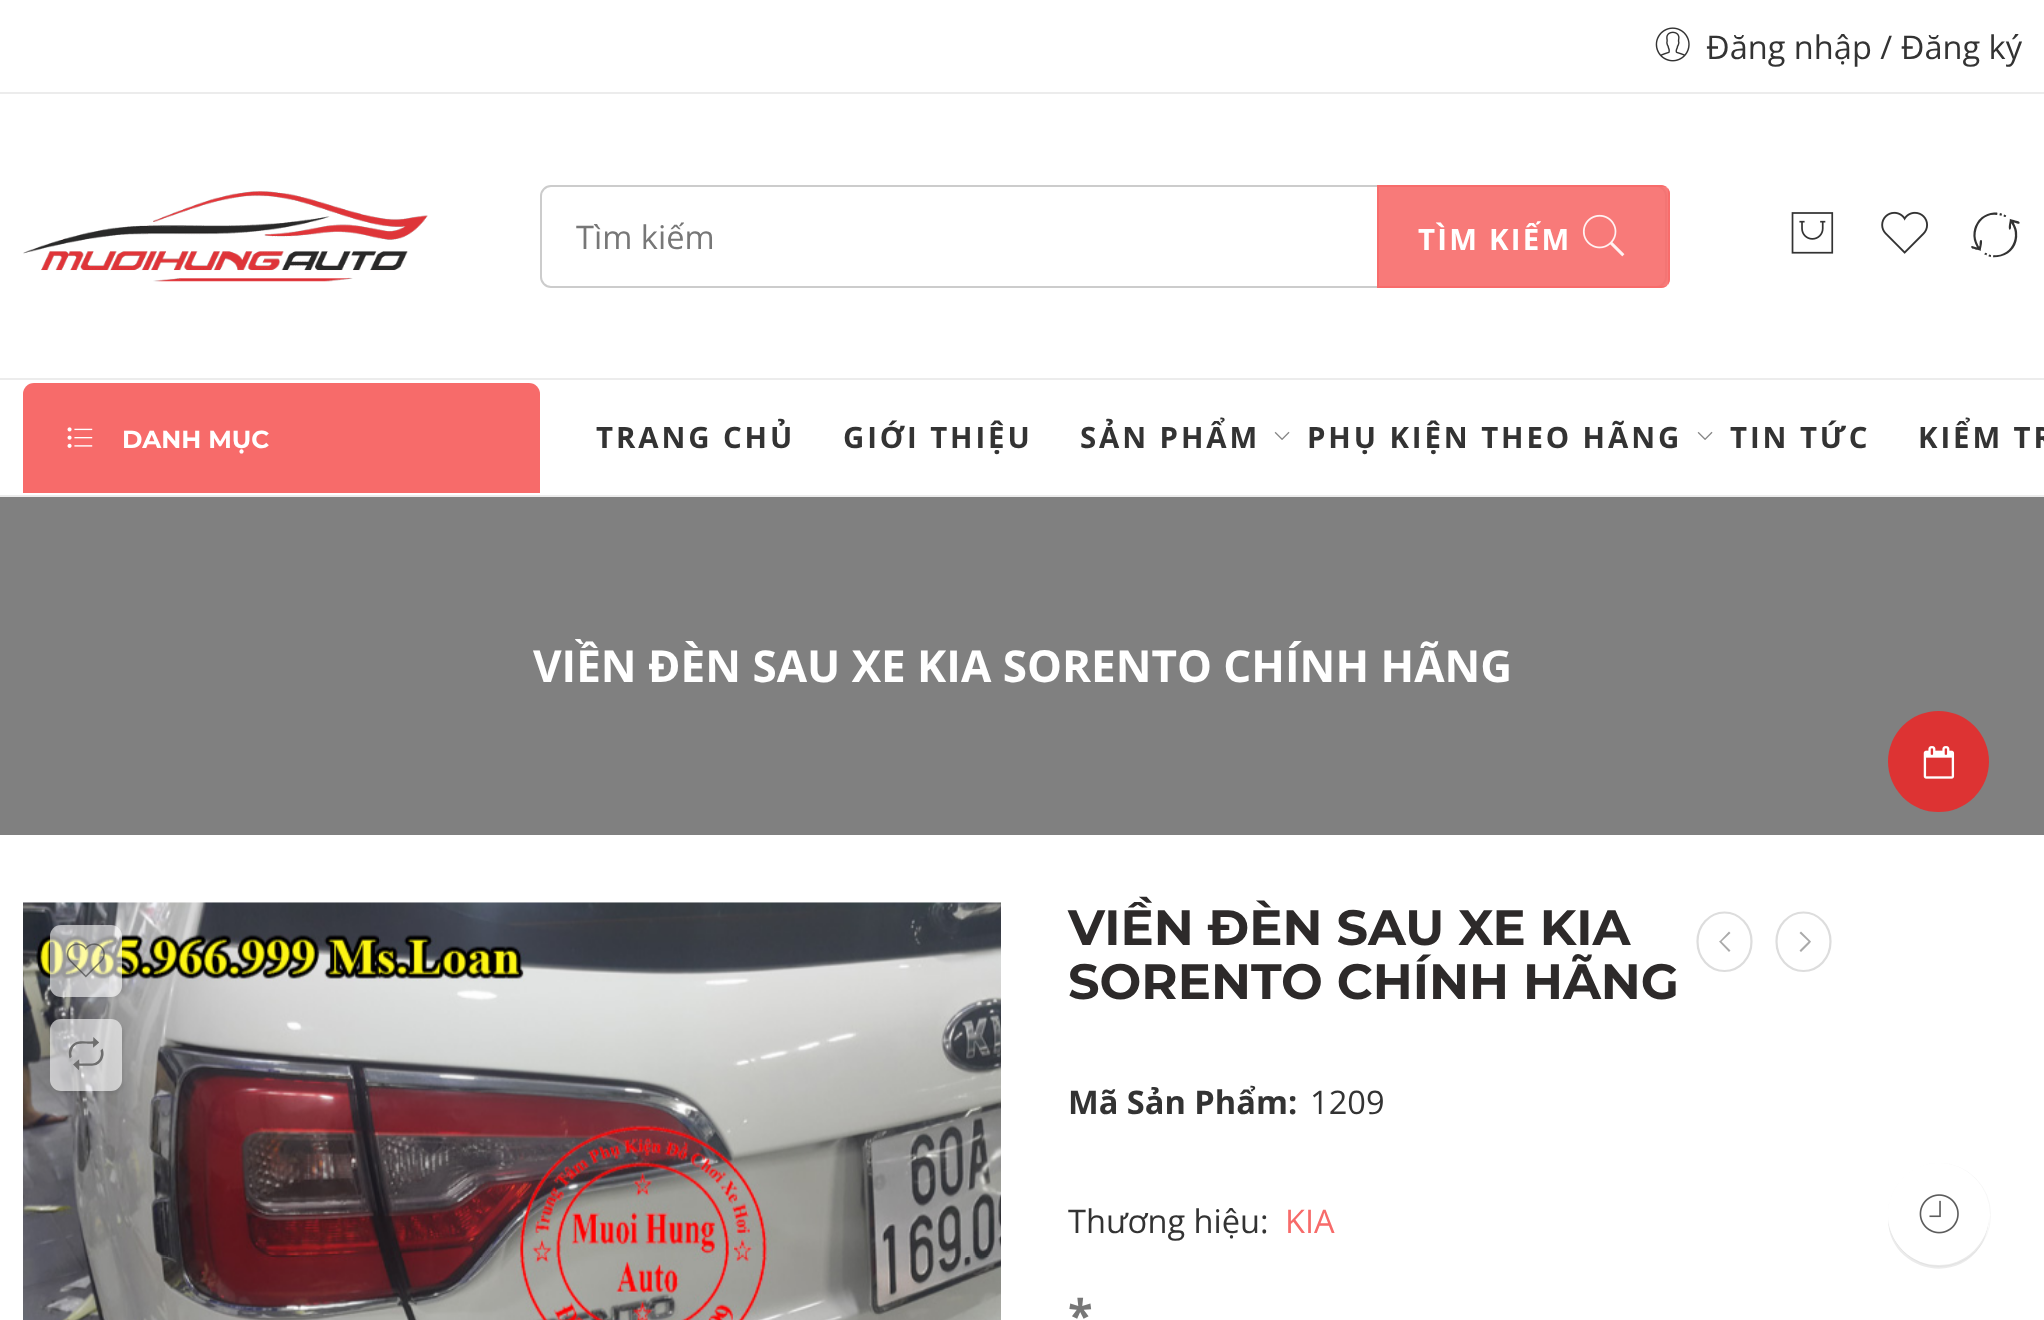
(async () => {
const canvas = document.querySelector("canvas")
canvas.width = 2044
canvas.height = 1320
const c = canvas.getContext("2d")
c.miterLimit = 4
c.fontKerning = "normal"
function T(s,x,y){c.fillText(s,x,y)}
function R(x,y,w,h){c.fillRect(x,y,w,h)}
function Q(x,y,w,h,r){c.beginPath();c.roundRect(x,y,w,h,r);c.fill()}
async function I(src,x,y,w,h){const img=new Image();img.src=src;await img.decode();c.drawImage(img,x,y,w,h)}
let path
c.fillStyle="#fff"
R(0,0,2044,1320)
c.fillStyle="#ececec"
R(0,92,2044,2)
await I("1.png",1655,27,35,35)
c.font="32.6px Open Sans"
c.fillStyle="#333"
T("Đăng nhập / Đăng ký",1706,59)
await I("2.png",23,191,405,91)
c.beginPath()
c.roundRect(541,186,1125,101,10)
c.strokeStyle="#ccc"
c.lineWidth=2
c.stroke()
c.fillStyle="#777"
T("Tìm kiếm",576,249)
c.fillStyle="#f76b6ae6"
c.beginPath()
c.roundRect(1377,185,293,103,[0,9,9,0])
c.fill()
path = new Path2D("M1377 185v103h284c2 0 4-1 6-2h-288v-99h288c-2-1-4-2-6-2zm291 3v97c1-2 2-4 2-6v-85c0-2-1-4-2-6z")
c.fill(path,"evenodd")
c.letterSpacing="2.25px"
c.font="bold 29.4px Open Sans"
c.fillStyle="#fff"
T("TÌM KIẾM",1418,250)
await I("3.png",1582,214,43,43)
await I("4.png",1791,212,43,42)
await I("5.png",1881,211,47,43)
c.letterSpacing="0px"
c.font="56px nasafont"
c.fillStyle="#333"
T("3",1967,266)
c.fillStyle="#ececec"
R(0,378,2044,2)
R(0,495,2044,2)
c.fillStyle="#f76b6a"
c.beginPath()
c.roundRect(23,383,517,110,[11,11,0,0])
c.fill()
await I("6.png",67,427,26,21)
c.font="bold 24.75px Montserrat"
c.fillStyle="#fff"
T("DANH MỤC",122,448)
c.letterSpacing="2.9px"
c.font="bold 29.4px Open Sans"
c.fillStyle="#333"
T("TRANG CHỦ",596,448)
T("GIỚI THIỆU",843,448)
T("SẢN PHẨM",1080,448)
await I("7.png",1274,431,16,9)
T("PHỤ KIỆN THEO HÃNG",1307,448)
await I("7.png",1697,431,16,9)
T("TIN TỨC",1730,448)
T("KIỂM TR",1918,448)
c.fillStyle="#808080"
R(0,497,2044,338)
c.letterSpacing="0px"
c.font="bold 44px Open Sans"
c.fillStyle="#fff"
T("VIỀN ĐÈN SAU XE KIA SORENTO CHÍNH HÃNG",533,682)
await I("8.png",23,902,978,418)
c.save()
path = new Path2D("M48 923h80v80h-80zm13 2h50c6 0 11 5 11 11v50c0 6-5 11-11 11h-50c-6 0-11-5-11-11v-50c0-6 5-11 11-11z")
c.clip(path,"evenodd")
c.fillStyle="#0000000f"
c.filter="blur(1px)"
c.beginPath()
c.roundRect(52,927,72,72,11)
c.fill()
c.filter="none"
c.restore()
c.fillStyle="#ffffff99"
Q(50,925,72,72,11)
await I("9.png",66,943,39,35)
c.save()
path = new Path2D("M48 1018h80v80h-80zm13 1h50c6 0 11 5 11 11v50c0 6-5 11-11 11h-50c-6 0-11-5-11-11v-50c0-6 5-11 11-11z")
c.clip(path,"evenodd")
c.fillStyle="#0000000f"
c.filter="blur(1px)"
c.beginPath()
c.roundRect(52,1022,72,72,11)
c.fill()
c.filter="none"
c.restore()
Q(50,1019,72,72,11)
c.font="46px nasafont"
c.fillStyle="#6e6e6e"
T("\"",63,1077)
c.font="bold 49.5px Montserrat"
c.fillStyle="#2d2a2a"
T("VIỀN ĐÈN SAU XE KIA",1068,945)
T("SORENTO CHÍNH HÃNG",1068,999)
path = new Path2D("M1724.5 912.5c15 0 27 13 27 29c0 16.5-12 29.5-27 29.5c-15 0-27-13-27-29.5c0-16 12-29 27-29z")
c.strokeStyle="#ddd"
c.lineWidth=2.2
c.stroke(path)
c.fillStyle="#aaa"
path = new Path2D("M1720.5 940.5l-1.5 1l10 10.5l1.5-1.5l-9-9l9-8.5l-1.5-1.5z")
c.fill(path)
path = new Path2D("M1803.5 912.5c15 0 27 13 27 29c0 16.5-12 29.5-27 29.5c-15 0-27-13-27-29.5c0-16 12-29 27-29z")
c.stroke(path)
path = new Path2D("M1810 943l1-1.5l-10-10l-1.5 1.5l9 8.5l-9 9l1.5 1.5z")
c.fill(path)
c.font="bold 32.6px Open Sans"
c.fillStyle="#333"
T("Mã Sản Phẩm:",1068,1114)
c.font="32.6px Open Sans"
T("1209",1310,1114)
T("Thương hiệu:",1068,1233)
c.fillStyle="#f76b6a"
T("KIA",1285,1233)
c.font="bold 45px Open Sans"
c.fillStyle="#777"
T("*",1068,1332)
c.fillStyle="#d33"
c.beginPath()
c.arc(1938.5,761.5,50.5,0,7)
c.fill()
await I("10.png",1923,746,32,33)
c.beginPath()
c.roundRect(1888.5,1163.5,102,103,51)
c.strokeStyle="#f7f7f7"
c.lineWidth=1
c.stroke()
c.fillStyle="#00000014"
path = new Path2D("M1888 1219c0 49 65 68 92 28c6-9 9-20 9-31c-1 27-23 48-51 48c-26 0-47-19-50-45z")
c.fill(path)
c.fillStyle="#fff"
Q(1888,1163,101,102,50.5)
await I("11.png",1919,1194,40,40)
})()
